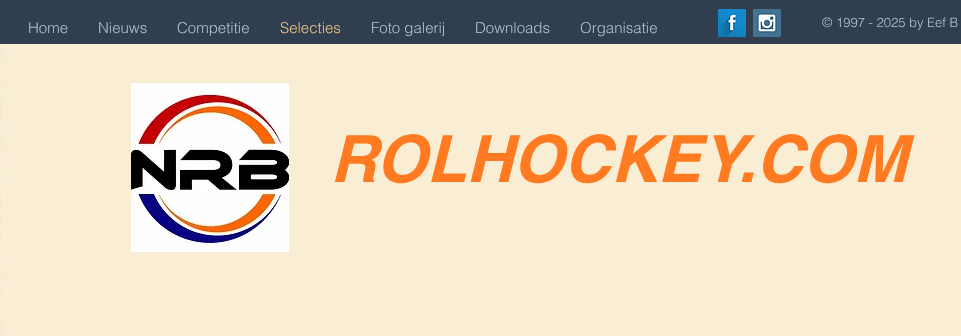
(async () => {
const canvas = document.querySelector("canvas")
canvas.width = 961
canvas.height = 336
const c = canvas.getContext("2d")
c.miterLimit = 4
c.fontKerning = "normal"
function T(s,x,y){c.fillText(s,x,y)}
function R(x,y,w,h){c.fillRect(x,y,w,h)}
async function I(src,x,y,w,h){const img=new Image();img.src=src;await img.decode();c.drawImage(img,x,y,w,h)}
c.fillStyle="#fff"
R(0,0,961,336)
c.fillStyle="#313e4f"
R(0,0,961,44)
c.font="300 15px helvetica"
c.fillStyle="#b3c0d3"
T("Home",28,33)
T("Nieuws",98,33)
T("Competitie",177,33)
c.fillStyle="#f0c886"
T("Selecties",280,33)
c.fillStyle="#b3c0d3"
T("Foto galerij",371,33)
T("Downloads",475,33)
T("Organisatie",580,33)
await I("1.png",718,9,28,28)
await I("2.png",753,9,28,28)
c.font="300 13px helvetica"
T("© 1997 - 2025 by Eef B",822,27)
await I("4.png",0,44,961,292)
await I("3.png",131,83,158,169)
c.font="italic bold 65px helvetica"
c.fillStyle="#ff7a20"
T("ROLHOCKEY.COM",330,182)
})()
